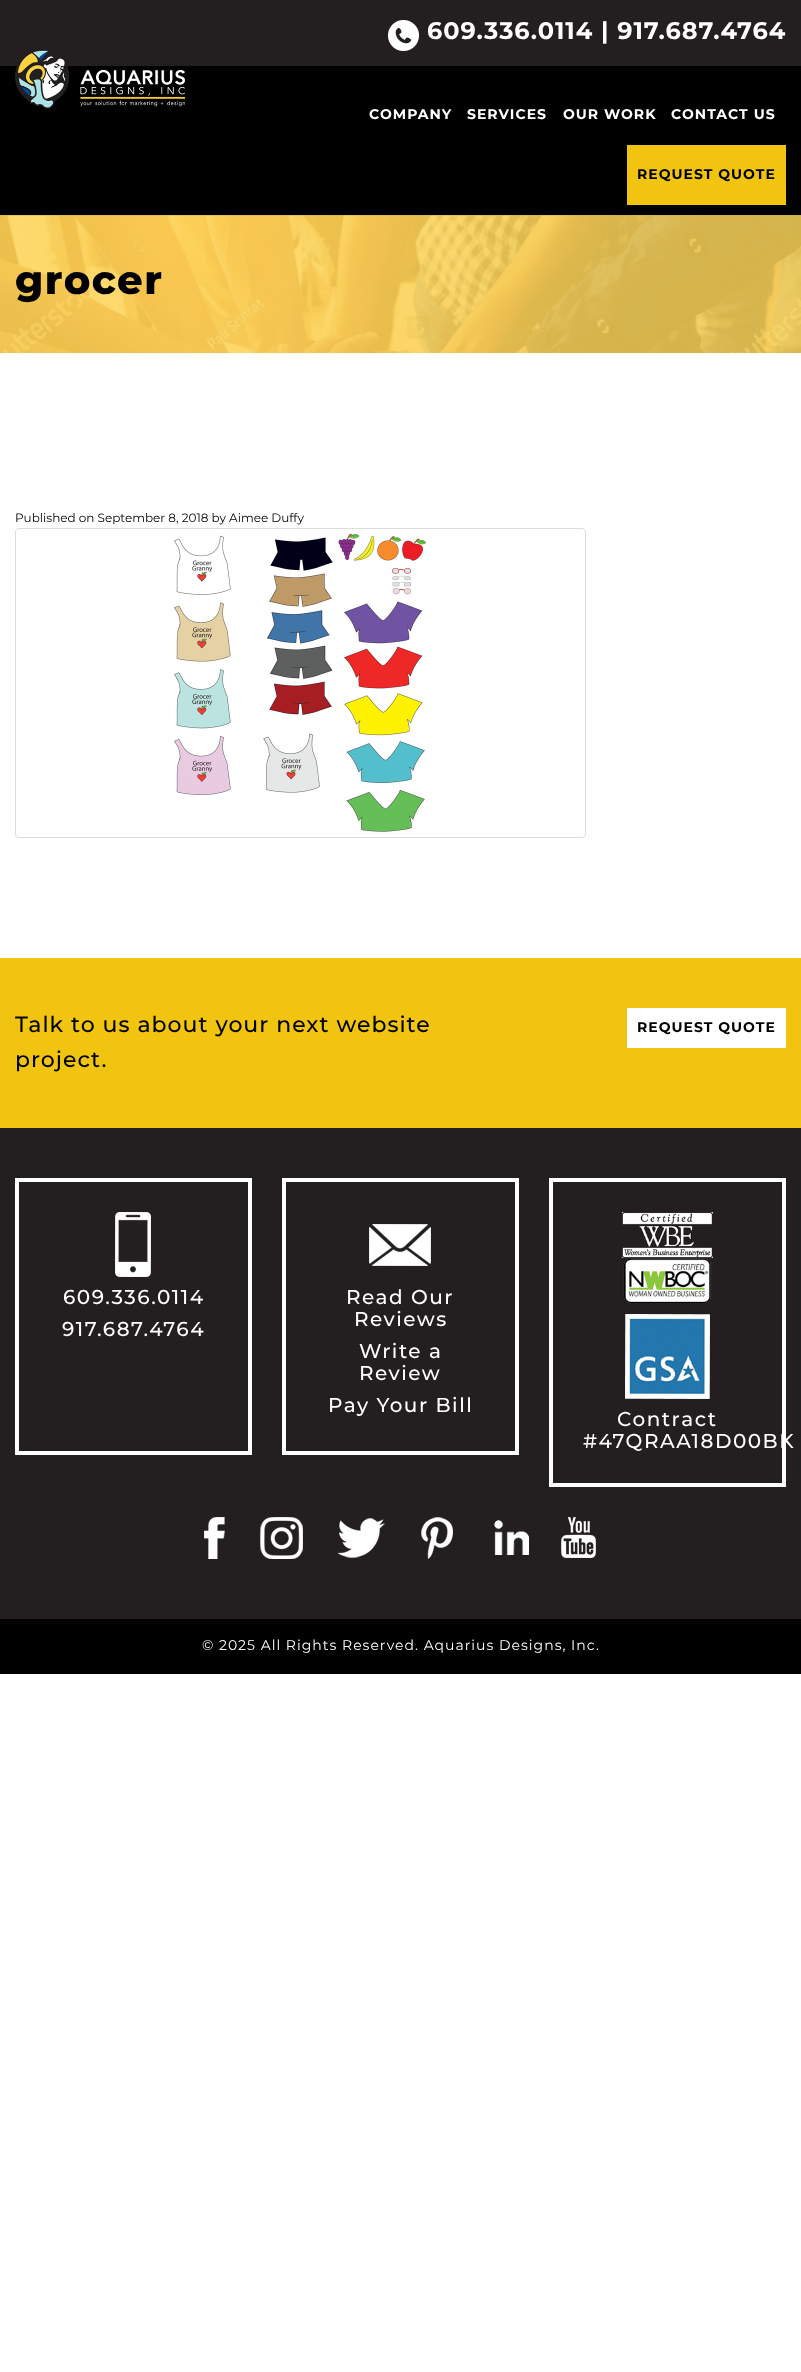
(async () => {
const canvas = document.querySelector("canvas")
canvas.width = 801
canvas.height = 2372
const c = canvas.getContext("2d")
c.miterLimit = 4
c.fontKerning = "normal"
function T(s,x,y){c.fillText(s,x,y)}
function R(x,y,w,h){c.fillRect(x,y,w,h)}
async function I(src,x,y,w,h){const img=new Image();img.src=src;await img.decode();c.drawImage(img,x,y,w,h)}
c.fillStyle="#fff"
R(0,0,801,2372)
c.fillStyle="#231f20"
R(0,0,801,66)
await I("1.png",388,20,31,31)
c.letterSpacing="1px"
c.font="bold 24px Montserrat"
c.fillStyle="#fff"
T("609.336.0114 | 917.687.4764",427,39)
c.fillStyle="#000"
R(0,66,801,149)
await I("2.png",15,50,170,59)
c.font="bold 14px Montserrat"
c.fillStyle="#fff"
T("COMPANY",369,119)
T("SERVICES",467,119)
T("OUR WORK",563,119)
T("CONTACT US",671,119)
c.fillStyle="#f1c40f"
R(627,145,159,60)
c.fillStyle="#000"
T("REQUEST QUOTE",637,179)
await I("3.png",0,215,801,138)
c.letterSpacing="1.5px"
c.font="800 40px Montserrat"
T("grocer",15,294)
c.letterSpacing="0px"
c.font="12px Montserrat"
T("Published on September 8, 2018 by Aimee Duffy",15,522)
c.beginPath()
c.roundRect(15.5,528.5,570,309,3.5)
c.strokeStyle="#ddd"
c.stroke()
await I("4.png",174,533,253,299)
c.fillStyle="#f1c40f"
R(0,958,801,170)
c.letterSpacing="1px"
c.font="500 22px Montserrat"
c.fillStyle="#000"
T("Talk to us about your next website",15,1032)
T("project.",15,1067)
c.fillStyle="#fff"
R(627,1008,159,40)
c.font="bold 14px Montserrat"
c.fillStyle="#000"
T("REQUEST QUOTE",637,1032)
c.fillStyle="#231f20"
R(0,1128,801,491)
c.strokeStyle="#fff"
c.lineWidth=4
c.strokeRect(17,1180,233,273)
await I("5.png",115,1212,36,65)
c.letterSpacing="1.5px"
c.font="500 20px Montserrat"
c.fillStyle="#fff"
T("609.336.0114",63,1304)
T("917.687.4764",62,1336)
c.strokeRect(284,1180,233,273)
await I("6.png",369,1224,62,42)
T("Read Our",346,1304)
T("Reviews",354,1326)
T("Write a",359,1358)
T("Review",359,1380)
T("Pay Your Bill",328,1412)
c.strokeRect(551,1180,233,305)
await I("7.png",621,1212,92,46)
await I("8.png",623,1258,89,46)
await I("9.png",625,1314,85,85)
T("Contract",617,1426)
T("#47QRAA18D00BK",583,1448)
await I("10.png",204,1517,21,42)
await I("11.png",260,1517,43,42)
await I("12.png",338,1518,47,40)
await I("13.png",421,1517,32,42)
await I("14.png",494,1520,35,35)
await I("15.png",561,1517,35,41)
c.fillStyle="#000"
R(0,1619,801,55)
c.letterSpacing="1px"
c.font="14px Montserrat"
c.fillStyle="#fff"
T("© 2025 All Rights Reserved. Aquarius Designs, Inc.",202,1650)
})()
